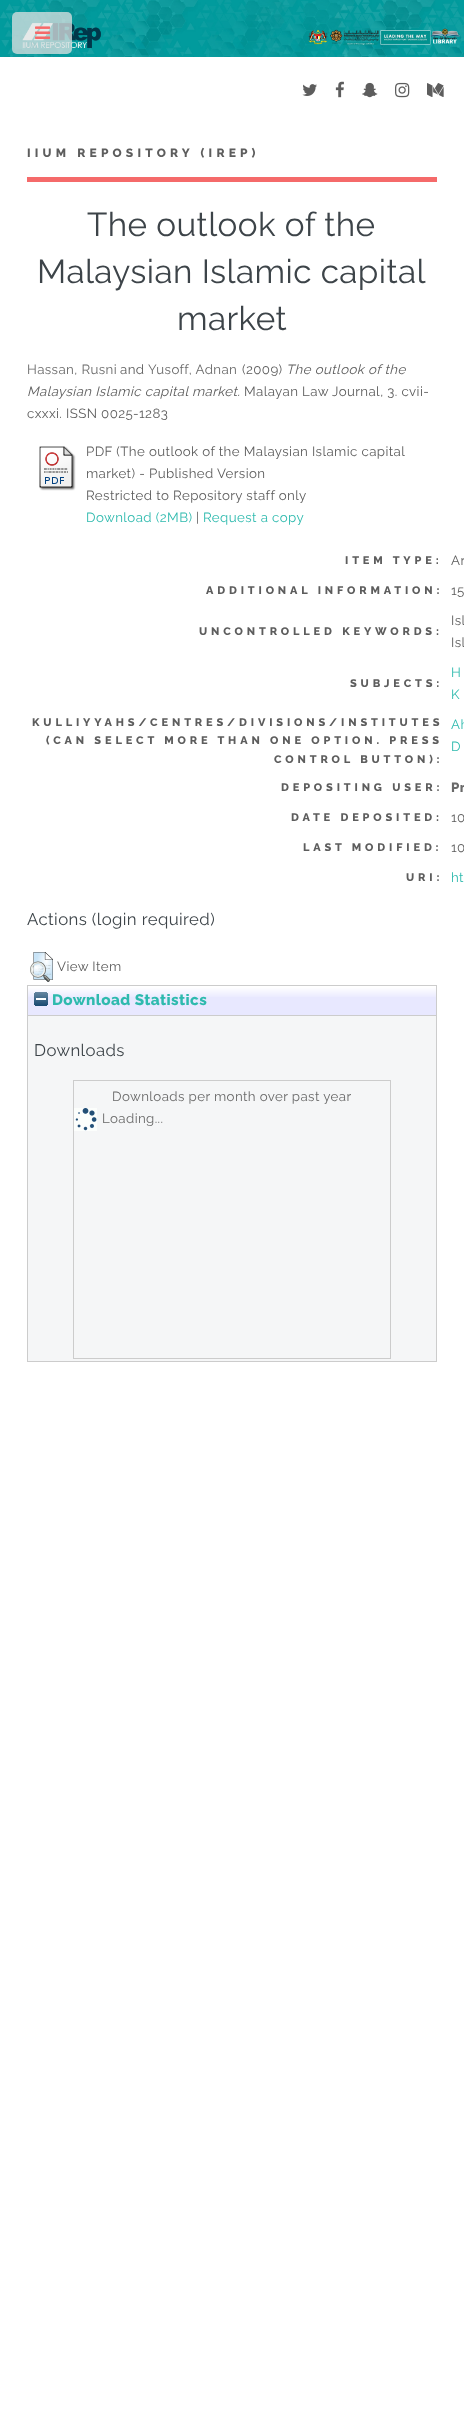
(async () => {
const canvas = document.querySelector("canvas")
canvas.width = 464
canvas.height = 2417
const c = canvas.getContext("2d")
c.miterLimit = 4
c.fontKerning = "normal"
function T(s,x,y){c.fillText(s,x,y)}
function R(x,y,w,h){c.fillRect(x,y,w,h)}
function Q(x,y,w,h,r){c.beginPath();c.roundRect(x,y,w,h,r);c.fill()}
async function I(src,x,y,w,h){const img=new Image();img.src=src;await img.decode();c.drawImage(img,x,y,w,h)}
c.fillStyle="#fff"
R(0,0,464,2417)
await I("1.png",0,0,464,57)
c.fillStyle="#dee1e2bf"
Q(12,12,60,42,5)
await I("2.png",35,26,16,13)
c.fillStyle="#f56a6a"
R(27,177,410,5)
await I("3.png",302,84,15,12)
await I("4.png",335,81,9,17)
await I("5.png",362,82,16,16)
await I("6.png",395,82,15,16)
await I("7.png",427,83,17,14)
c.letterSpacing="4.2px"
c.font="800 12px Raleway"
c.fillStyle="#5d5d5d"
T("IIUM REPOSITORY (IREP)",27,157)
c.letterSpacing="0.4px"
c.font="33.25px Raleway"
c.fillStyle="#3d4449"
T("The outlook of the",87,236)
T("Malaysian Islamic capital",37,283)
T("market",177,330)
c.font="13.3px Raleway"
c.fillStyle="#696969"
T("Hassan, Rusni",27,374)
c.fillStyle="#5d5d5d"
T("and",120,374)
c.fillStyle="#696969"
T("Yusoff, Adnan",148,374)
c.fillStyle="#5d5d5d"
T("(2009)",242,374)
c.font="italic 13.3px Raleway"
T("The outlook of the",286,374)
T("Malaysian Islamic capital market.",27,396)
c.font="13.3px Raleway"
T("Malayan Law Journal, 3. cvii-",244,396)
T("cxxxi. ISSN 0025-1283",27,418)
await I("8.png",39,446,37,45)
T("PDF (The outlook of the Malaysian Islamic capital",86,456)
T("market) - Published Version",86,478)
T("Restricted to Repository staff only",86,500)
c.fillStyle="#2ebaae"
T("Download (2MB)",86,522)
c.fillStyle="#5d5d5d"
T("|",196,522)
c.fillStyle="#2ebaae"
T("Request a copy",203,522)
c.letterSpacing="3.85px"
c.font="800 11px Raleway"
c.fillStyle="#5d5d5d"
T("ITEM TYPE:",345,564)
c.letterSpacing="0.4px"
c.font="13.3px Raleway"
T("Ar",451,565)
c.letterSpacing="3.85px"
c.font="800 11px Raleway"
T("ADDITIONAL INFORMATION:",206,594)
c.letterSpacing="0.4px"
c.font="13.3px Raleway"
T("15",451,595)
c.letterSpacing="3.85px"
c.font="800 11px Raleway"
T("UNCONTROLLED KEYWORDS:",199,635)
c.letterSpacing="0.4px"
c.font="13.3px Raleway"
T("Isl",451,625)
T("Isl",451,647)
c.letterSpacing="3.85px"
c.font="800 11px Raleway"
T("SUBJECTS:",350,687)
c.letterSpacing="0.4px"
c.font="13.3px Raleway"
c.fillStyle="#2ebaae"
T("H",451,677)
T("K",451,699)
c.letterSpacing="3.85px"
c.font="800 11px Raleway"
c.fillStyle="#5d5d5d"
T("KULLIYYAHS/CENTRES/DIVISIONS/INSTITUTES",32,726)
T("(CAN SELECT MORE THAN ONE OPTION. PRESS",46,744)
T("CONTROL BUTTON):",274,763)
c.letterSpacing="0.4px"
c.font="13.3px Raleway"
c.fillStyle="#2ebaae"
T("Ah",451,729)
T("D",451,751)
c.letterSpacing="3.85px"
c.font="800 11px Raleway"
c.fillStyle="#5d5d5d"
T("DEPOSITING USER:",281,791)
c.letterSpacing="0.4px"
c.font="800 13.3px Raleway"
c.fillStyle="#696969"
T("Pr",451,792)
c.letterSpacing="3.85px"
c.font="800 11px Raleway"
c.fillStyle="#5d5d5d"
T("DATE DEPOSITED:",291,821)
c.letterSpacing="0.4px"
c.font="13.3px Raleway"
T("10",451,822)
c.letterSpacing="3.85px"
c.font="800 11px Raleway"
T("LAST MODIFIED:",303,851)
c.letterSpacing="0.4px"
c.font="13.3px Raleway"
T("10",451,852)
c.letterSpacing="3.85px"
c.font="800 11px Raleway"
T("URI:",406,881)
c.letterSpacing="0.4px"
c.font="13.3px Raleway"
c.fillStyle="#2ebaae"
T("ht",451,882)
c.font="16.75px Raleway"
c.fillStyle="#3d4449"
T("Actions (login required)",27,925)
await I("9.png",30,952,23,30)
c.font="13.3px Raleway"
c.fillStyle="#5d5d5d"
T("View Item",57,971)
c.fillStyle="#e8e8ff"
R(28,987,408,28)
await I("10.png",28,986,408,11)
c.strokeStyle="#ccc"
c.strokeRect(27.5,985.5,409,30)
await I("11.png",34,992,14,14)
c.font="800 15.25px Raleway"
c.fillStyle="#2ebaae"
T("Download Statistics",52,1005)
c.fillStyle="#f5f6f7"
R(28,1016,408,345)
c.fillStyle="#ccc"
R(436,1016,1,346)
R(27,1361,410,1)
R(27,1016,1,346)
c.font="16.75px Raleway"
c.fillStyle="#3d4449"
T("Downloads",34,1056)
c.strokeRect(73.5,1080.5,317,278)
c.font="13.3px Raleway"
c.fillStyle="#696969"
T("Downloads per month over past year",112,1101)
await I("12.png",74,1108,23,23)
T("Loading...",102,1123)
})()
